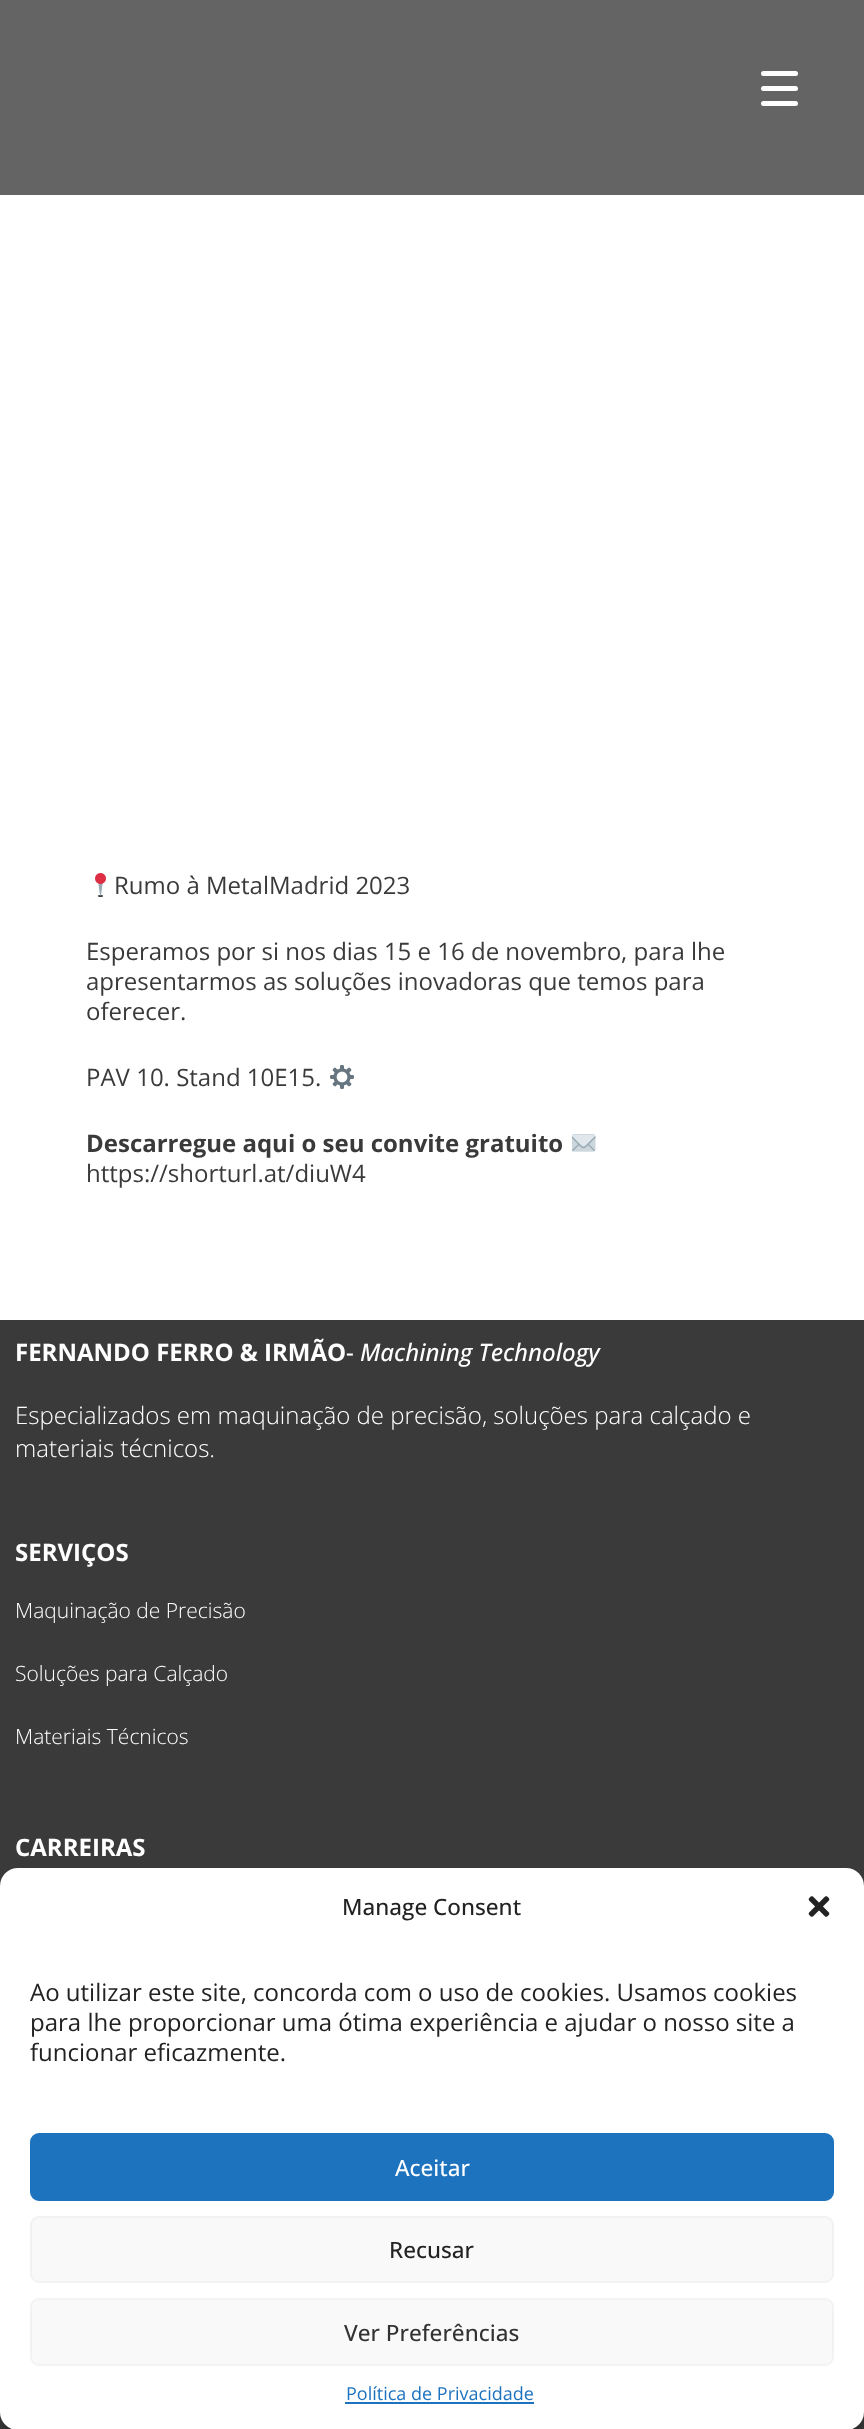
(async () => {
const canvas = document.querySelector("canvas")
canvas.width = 864
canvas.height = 2429
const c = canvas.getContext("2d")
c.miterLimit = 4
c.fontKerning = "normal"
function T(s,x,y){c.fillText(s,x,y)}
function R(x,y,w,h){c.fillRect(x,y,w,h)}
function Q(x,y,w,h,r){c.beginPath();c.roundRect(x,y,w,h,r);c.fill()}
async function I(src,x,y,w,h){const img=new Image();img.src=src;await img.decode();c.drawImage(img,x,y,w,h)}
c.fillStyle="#fff"
R(0,0,864,2429)
c.fillStyle="#646464"
R(0,0,864,195)
c.fillStyle="#fff"
Q(761,86,37,5,2.5)
Q(761,71,37,5,2.5)
Q(761,101,37,5,2.5)
await I("1.png",95,873,11,24)
c.font="24px Open Sans"
c.fillStyle="#3a3a3a"
T("Rumo à MetalMadrid 2023",114,894)
T("Esperamos por si nos dias 15 e 16 de novembro, para lhe",86,960)
T("apresentarmos as soluções inovadoras que temos para",86,990)
T("oferecer.",86,1020)
T("PAV 10. Stand 10E15.",86,1086)
await I("2.png",330,1065,24,24)
c.font="bold 24px Open Sans"
T("Descarregue aqui o seu convite gratuito",86,1152)
await I("3.png",572,1134,24,18)
c.font="24px Open Sans"
T("https://shorturl.at/diuW4",86,1182)
R(0,1320,864,1109)
c.font="bold 24px Open Sans"
c.fillStyle="#fff"
T("FERNANDO FERRO & IRMÃO",15,1361)
c.font="500 24px Open Sans"
T("-",346,1361)
c.font="italic 500 24px Open Sans"
T("Machining Technology",360,1361)
c.font="300 24px Open Sans"
T("Especializados em maquinação de precisão, soluções para calçado e",15,1424)
T("materiais técnicos.",15,1457)
c.font="bold 24px Open Sans"
T("SERVIÇOS",15,1561)
c.font="300 21px Open Sans"
T("Maquinação de Precisão",15,1618)
T("Soluções para Calçado",15,1681)
T("Materiais Técnicos",15,1744)
c.font="bold 24px Open Sans"
T("CARREIRAS",15,1856)
c.fillStyle="#0000003b"
c.filter="blur(4.5px)"
c.beginPath()
c.roundRect(0,1877,864,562,18)
c.fill()
c.filter="none"
c.fillStyle="#fff"
Q(0,1868,864,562,18)
c.font="500 22.5px Open Sans"
c.fillStyle="#222"
T("Manage Consent",342,1915)
await I("4.png",808,1896,22,21)
c.font="24px Open Sans"
T("Ao utilizar este site, concorda com o uso de cookies. Usamos cookies",30,2001)
T("para lhe proporcionar uma ótima experiência e ajudar o nosso site a",30,2031)
T("funcionar eficazmente.",30,2061)
c.fillStyle="#1e73be"
c.beginPath()
c.roundRect(31,2134,802,66,8)
c.fill()
c.strokeStyle="#1e73be"
c.lineWidth=2
c.stroke()
c.font="500 22.5px Open Sans"
c.fillStyle="#fff"
T("Aceitar",395,2176)
c.fillStyle="#f9f9f9"
c.beginPath()
c.roundRect(31,2217,802,65,8)
c.fill()
c.strokeStyle="#f2f2f2"
c.stroke()
c.fillStyle="#222"
T("Recusar",389,2258)
c.fillStyle="#f9f9f9"
c.beginPath()
c.roundRect(31,2299,802,66,8)
c.fill()
c.stroke()
c.fillStyle="#333"
T("Ver Preferências",344,2341)
c.font="18px Open Sans"
c.fillStyle="#1e73be"
T("Política de Privacidade",346,2400)
R(345,2402,189,2)
})()
